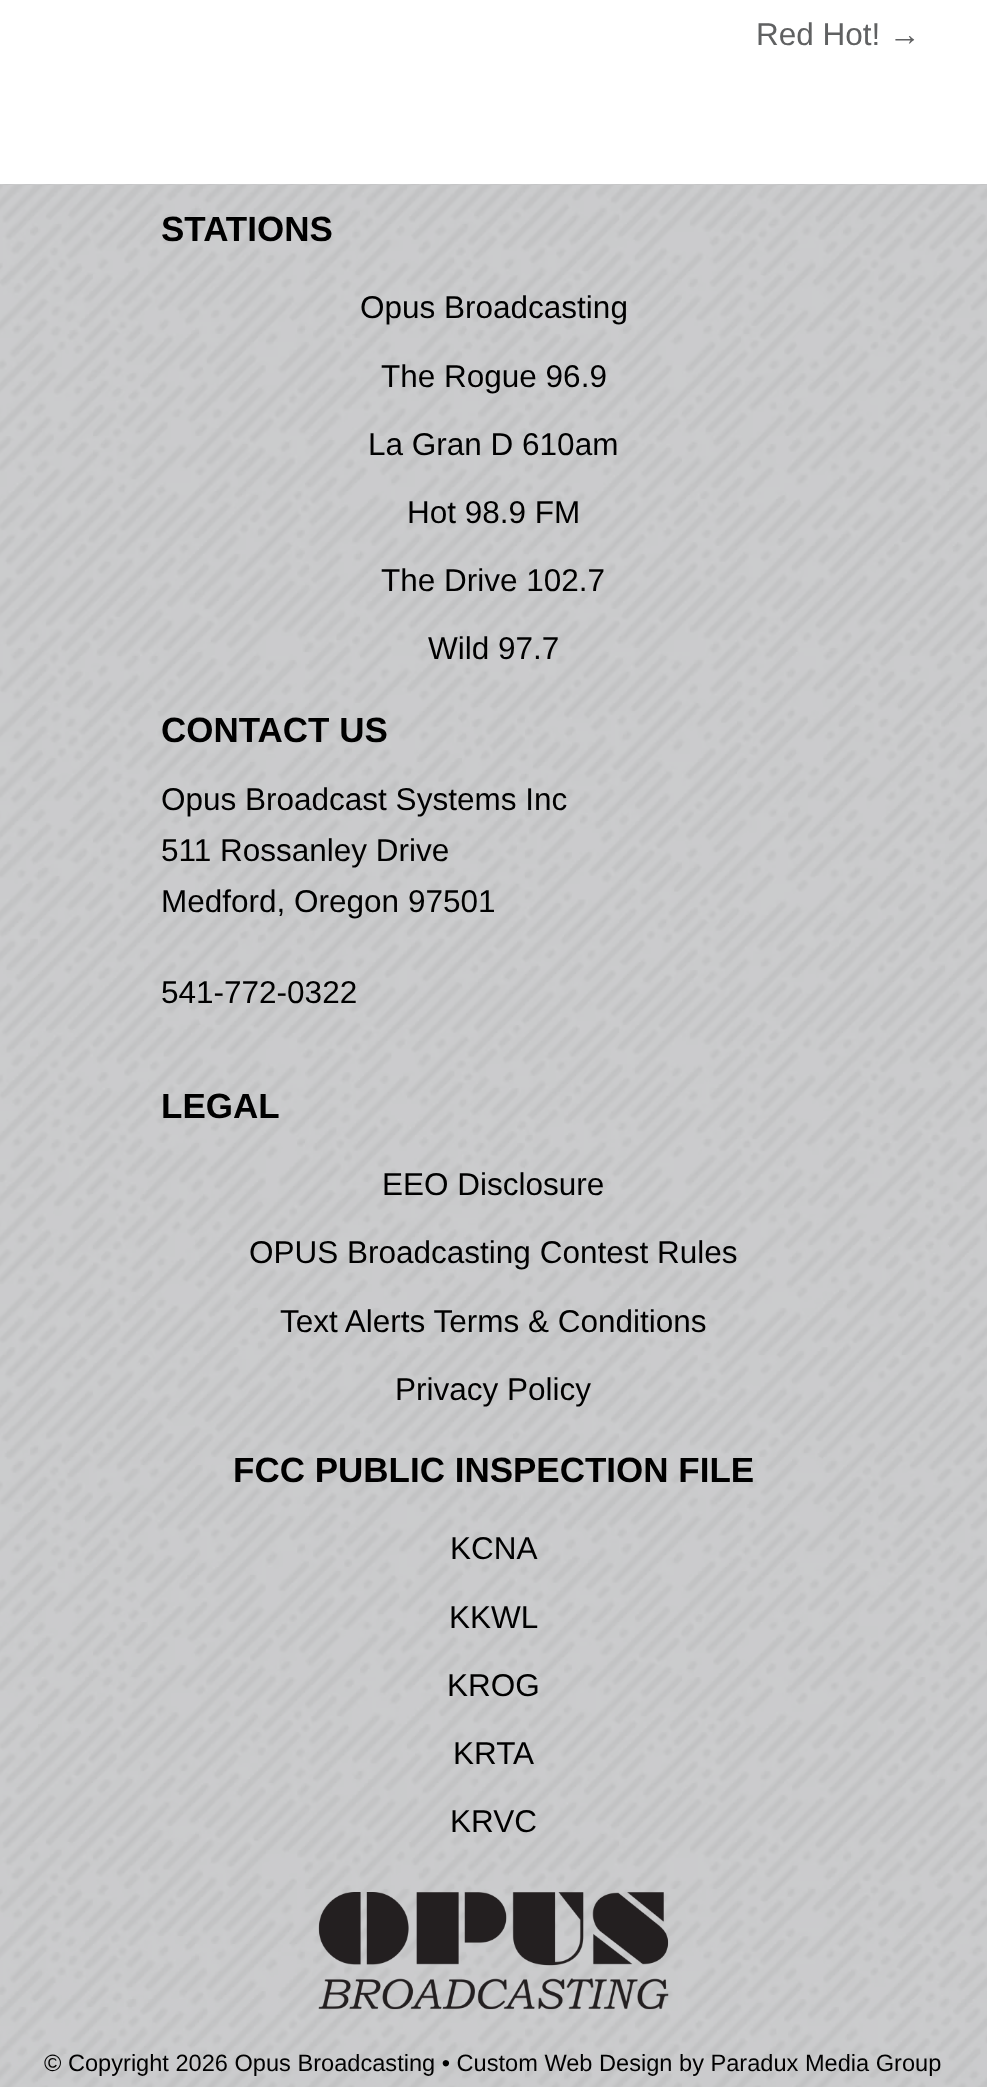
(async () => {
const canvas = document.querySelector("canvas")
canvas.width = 987
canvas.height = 2087
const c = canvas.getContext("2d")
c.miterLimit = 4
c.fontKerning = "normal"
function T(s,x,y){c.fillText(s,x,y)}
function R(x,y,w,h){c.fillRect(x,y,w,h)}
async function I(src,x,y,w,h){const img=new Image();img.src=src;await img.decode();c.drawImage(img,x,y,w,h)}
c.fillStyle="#fff"
R(0,0,987,2087)
c.font="31.5px Arimo"
c.fillStyle="#606162"
T("Red Hot!",756,45)
c.font="31.5px Liberation Sans"
T("→",889,45)
await I("1.png",0,184,987,1903)
c.font="bold 35px Arimo"
c.fillStyle="#000"
T("STATIONS",161,241)
c.font="31.5px Arimo"
T("Opus Broadcasting",360,318)
T("The Rogue 96.9",381,387)
T("La Gran D 610am",368,455)
T("Hot 98.9 FM",407,523)
T("The Drive 102.7",381,591)
T("Wild 97.7",428,659)
c.font="bold 35px Arimo"
T("CONTACT US",161,742)
c.font="31.5px Arimo"
T("Opus Broadcast Systems Inc",161,810)
T("511 Rossanley Drive",161,861)
T("Medford, Oregon 97501",161,912)
T("541-772-0322",161,1003)
c.font="bold 35px Arimo"
T("LEGAL",161,1118)
c.font="31.5px Arimo"
T("EEO Disclosure",382,1195)
T("OPUS Broadcasting Contest Rules",249,1263)
T("Text Alerts Terms & Conditions",280,1332)
T("Privacy Policy",395,1400)
c.font="bold 35px Arimo"
T("FCC PUBLIC INSPECTION FILE",233,1482)
c.font="31.5px Arimo"
T("KCNA",450,1559)
T("KKWL",449,1628)
T("KROG",447,1696)
T("KRTA",453,1764)
T("KRVC",450,1832)
await I("2.png",318,1892,351,118)
c.font="23.6px Arimo"
T("© Copyright 2026 Opus Broadcasting • Custom Web Design by Paradux Media Group",44,2071)
})()
